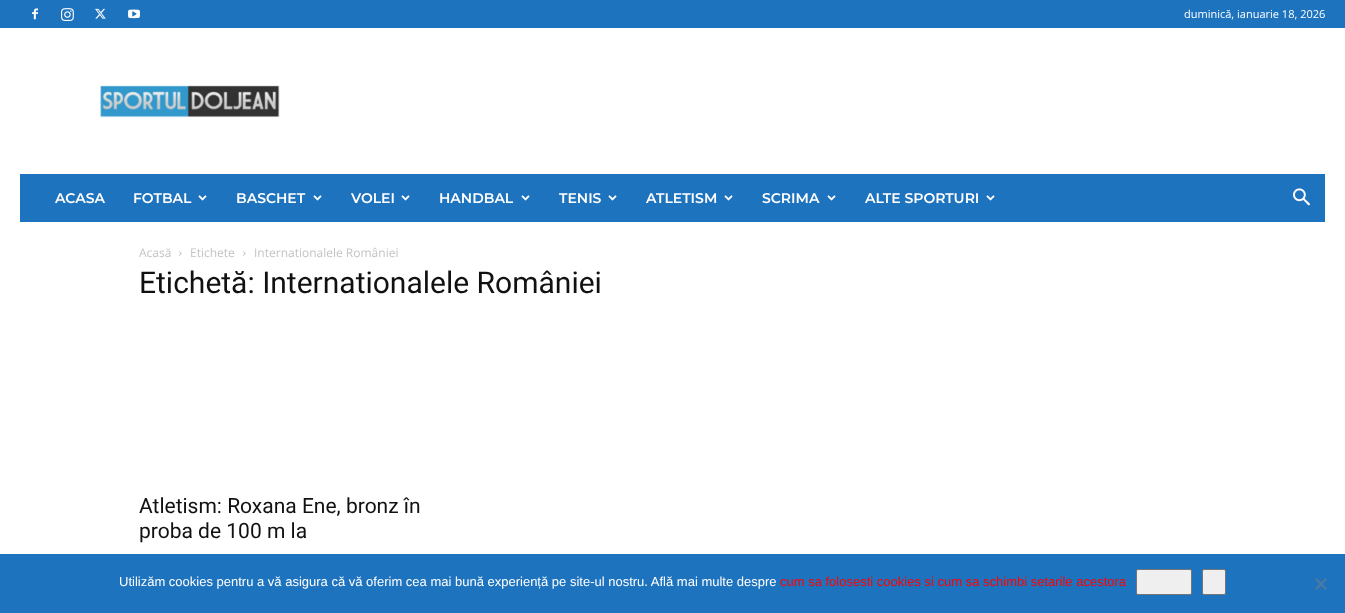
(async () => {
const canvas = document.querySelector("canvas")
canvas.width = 1345
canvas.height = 613
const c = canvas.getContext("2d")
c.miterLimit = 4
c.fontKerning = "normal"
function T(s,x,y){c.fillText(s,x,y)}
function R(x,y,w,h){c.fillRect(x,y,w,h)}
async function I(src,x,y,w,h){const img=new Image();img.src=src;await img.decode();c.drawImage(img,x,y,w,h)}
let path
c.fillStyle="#fff"
R(0,0,1345,613)
c.fillStyle="#1e73be"
R(0,0,1345,28)
await I("1.png",32,8,6,12)
await I("2.png",61,8,13,13)
await I("3.png",95,8,11,11)
await I("4.png",128,9,12,10)
c.font="11px Open Sans"
c.fillStyle="#fff"
T("duminică, ianuarie 18, 2026",1184,18)
await I("5.png",100,85,180,33)
c.fillStyle="#1e73be"
R(20,174,1305,48)
c.font="600 14px Montserrat"
c.fillStyle="#fff"
T("ACASA",55,203)
T("FOTBAL",133,203)
await I("6.png",198,195,9,6)
T("BASCHET",236,203)
await I("6.png",313,195,9,6)
T("VOLEI",351,203)
await I("6.png",401,195,9,6)
T("HANDBAL",439,203)
await I("6.png",521,195,9,6)
T("TENIS",559,203)
await I("6.png",608,195,9,6)
T("ATLETISM",646,203)
await I("6.png",724,195,9,6)
T("SCRIMA",762,203)
await I("6.png",827,195,9,6)
T("ALTE SPORTURI",865,203)
await I("6.png",986,195,9,6)
await I("7.png",1293,188,17,18)
c.font="12px Open Sans"
c.fillStyle="#c3c3c3"
T("Acasă",139,257)
await I("8.png",179,251,3,5)
T("Etichete",190,257)
await I("8.png",243,251,3,5)
T("Internationalele României",254,257)
c.font="30px Roboto"
c.fillStyle="#111"
T("Etichetă: Internationalele României",139,293)
c.font="21px Roboto"
T("Atletism: Roxana Ene, bronz în",139,513)
T("proba de 100 m la",139,538)
c.fillStyle="#1e73be"
R(0,554,1345,59)
c.font="13px Liberation Sans"
c.fillStyle="#fff"
T("Utilizăm cookies pentru a vă asigura că vă oferim cea mai bună experiență pe site-ul nostru. Află mai multe despre",119,586)
c.fillStyle="#f00"
T("cum sa folosesti cookies si cum sa schimbi setarile acestora",780,586)
c.fillStyle="#efefef"
c.beginPath()
c.roundRect(1136.5,569.5,55,25,1.5)
c.fill()
c.strokeStyle="#767676"
c.stroke()
c.beginPath()
c.roundRect(1202.5,569.5,23,25,1.5)
c.fill()
c.stroke()
c.fillStyle="#4f7a9f"
path = new Path2D("M1325.5 578l1.5 1.5l-10.5 10.5l-1.5-1.5z")
c.fill(path)
path = new Path2D("M1315 579.5l1.5-1.5l10.5 10.5l-1.5 1.5z")
c.fill(path)
})()
